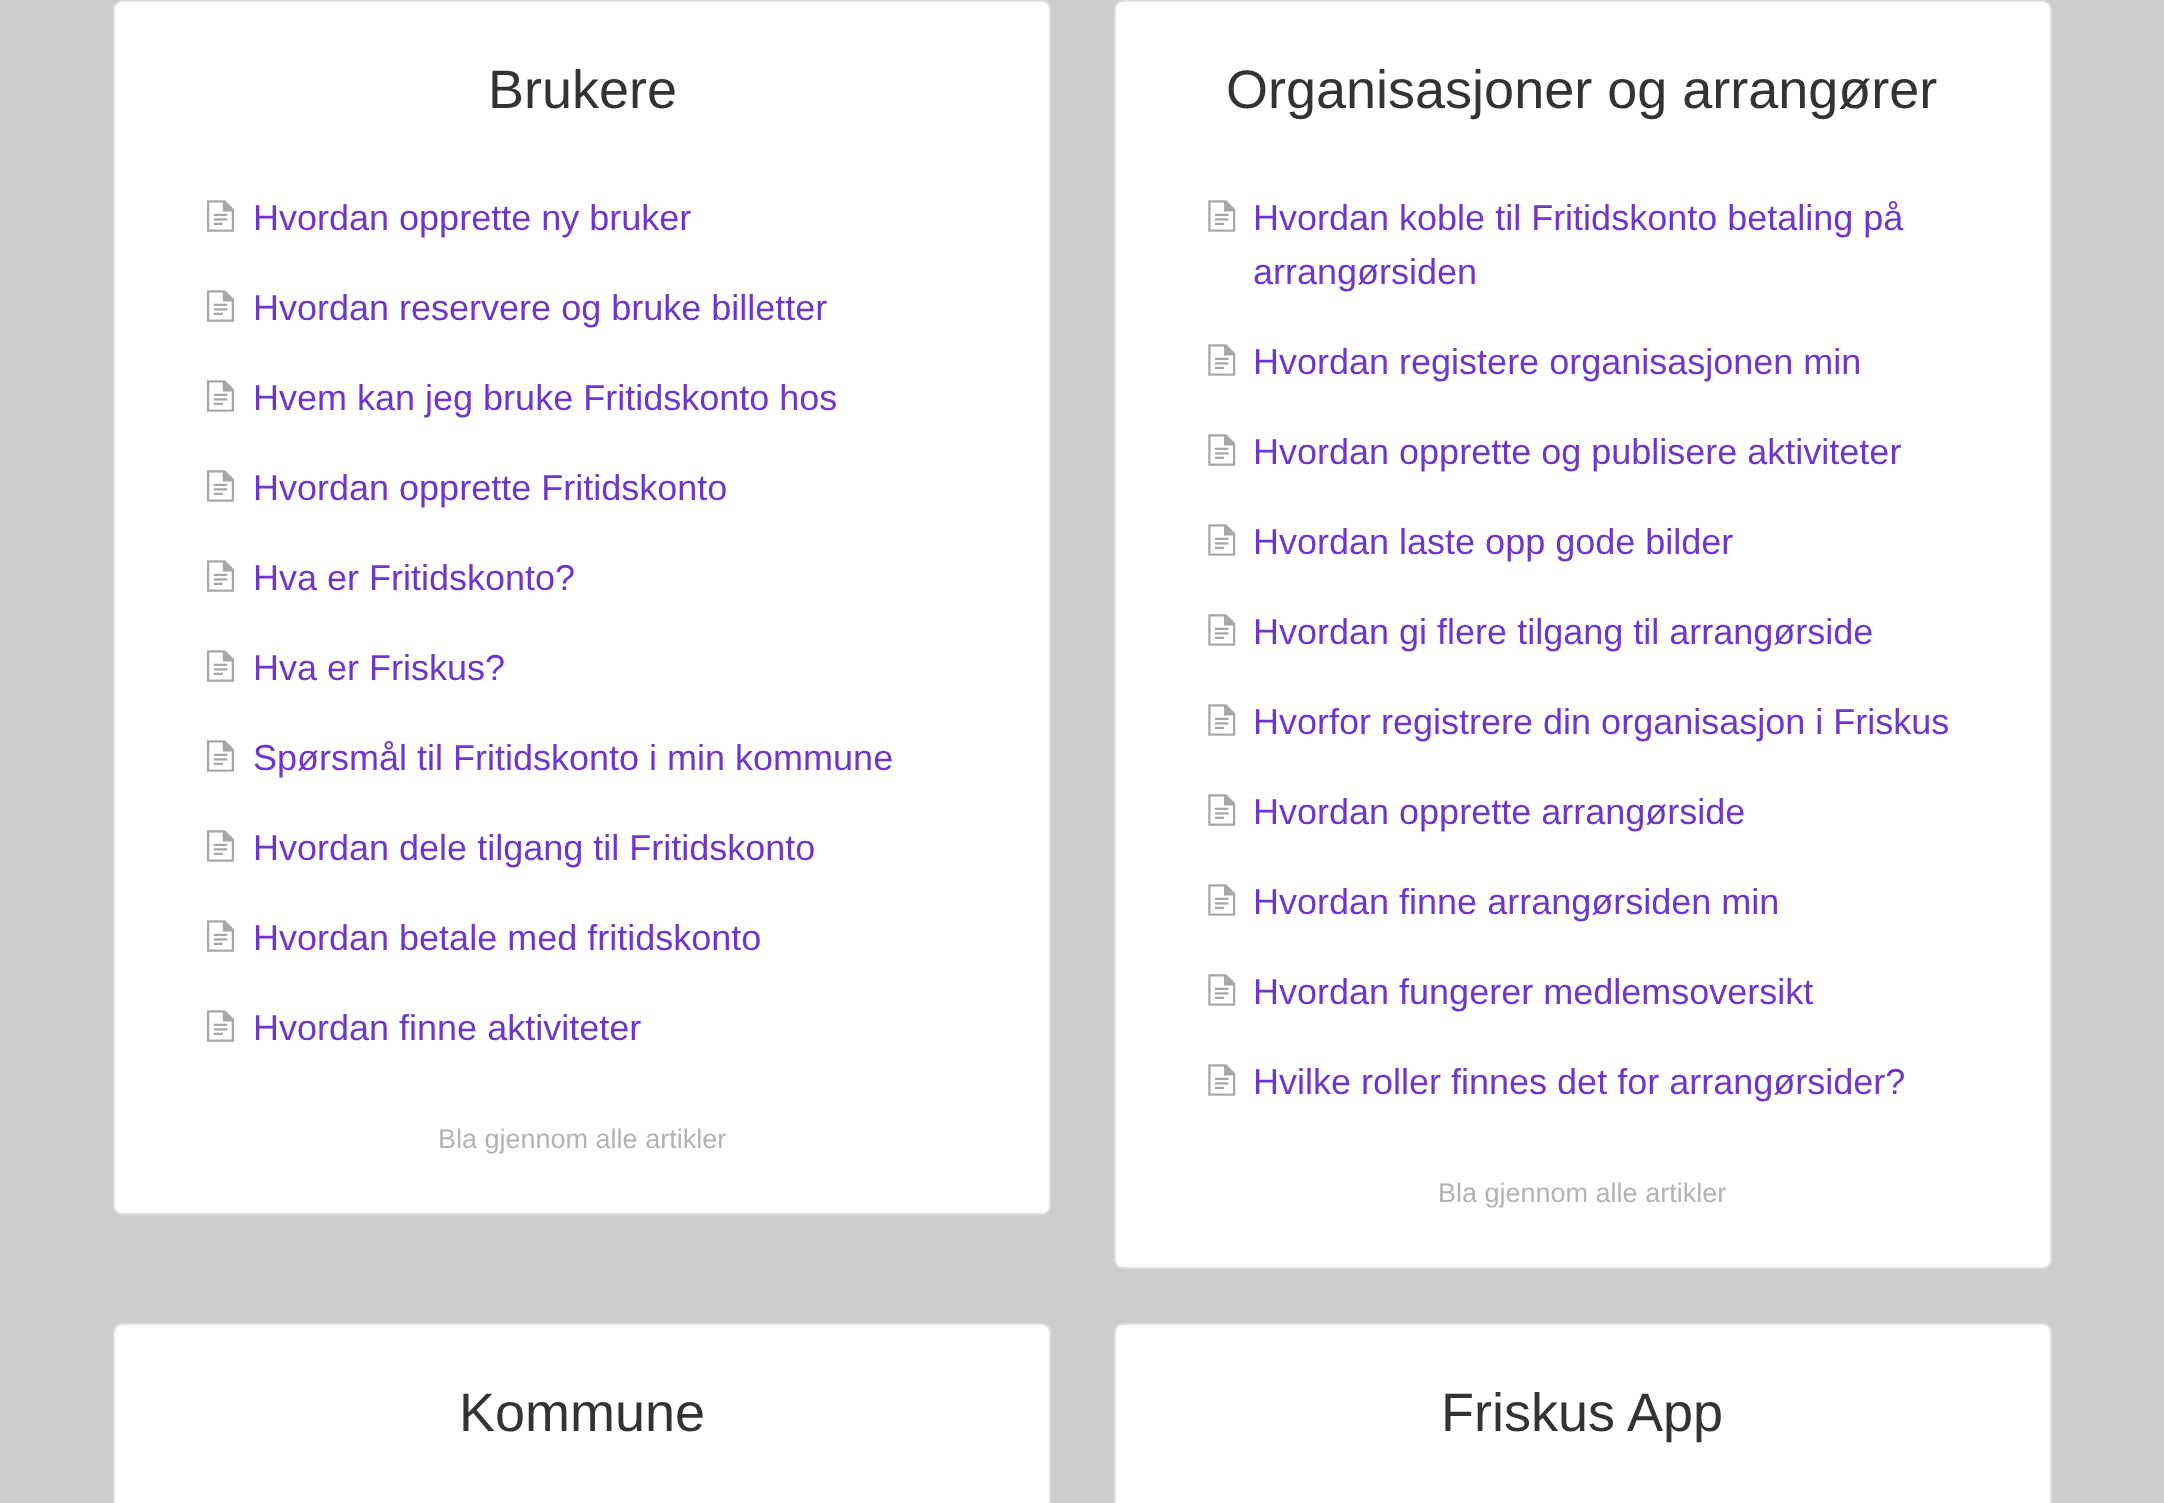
(async () => {
const canvas = document.querySelector("canvas")
canvas.width = 2164
canvas.height = 1503
const c = canvas.getContext("2d")
c.miterLimit = 4
c.fontKerning = "normal"
function T(s,x,y){c.fillText(s,x,y)}
function R(x,y,w,h){c.fillRect(x,y,w,h)}
async function I(src,x,y,w,h){const img=new Image();img.src=src;await img.decode();c.drawImage(img,x,y,w,h)}
c.fillStyle="#cdcdce"
R(0,0,2164,1503)
c.fillStyle="#fff"
c.beginPath()
c.roundRect(114,1,936,1213,8)
c.fill()
c.strokeStyle="#e1e0e0"
c.lineWidth=2
c.stroke()
c.font="54px Liberation Sans"
c.fillStyle="#333"
T("Brukere",488,108)
await I("1.png",207,200,27,32)
c.font="36px Liberation Sans"
c.fillStyle="#6e37cb"
T("Hvordan opprette ny bruker",253,230)
await I("1.png",207,290,27,32)
T("Hvordan reservere og bruke billetter",253,320)
await I("1.png",207,380,27,32)
T("Hvem kan jeg bruke Fritidskonto hos",253,410)
await I("1.png",207,470,27,32)
T("Hvordan opprette Fritidskonto",253,500)
await I("1.png",207,560,27,32)
T("Hva er Fritidskonto?",253,590)
await I("1.png",207,650,27,32)
T("Hva er Friskus?",253,680)
await I("1.png",207,740,27,32)
T("Spørsmål til Fritidskonto i min kommune",253,770)
await I("1.png",207,830,27,32)
T("Hvordan dele tilgang til Fritidskonto",253,860)
await I("1.png",207,920,27,32)
T("Hvordan betale med fritidskonto",253,950)
await I("1.png",207,1010,27,32)
T("Hvordan finne aktiviteter",253,1040)
c.font="27px Liberation Sans"
c.fillStyle="#b3b3b3"
T("Bla gjennom alle artikler",438,1148)
c.fillStyle="#fff"
c.beginPath()
c.roundRect(1115,1,936,1267,8)
c.fill()
c.stroke()
c.font="54px Liberation Sans"
c.fillStyle="#333"
T("Organisasjoner og arrangører",1226,108)
await I("2.png",1208,200,28,32)
c.font="36px Liberation Sans"
c.fillStyle="#6e37cb"
T("Hvordan koble til Fritidskonto betaling på",1253,230)
T("arrangørsiden",1253,284)
await I("2.png",1208,344,28,32)
T("Hvordan registere organisasjonen min",1253,374)
await I("2.png",1208,434,28,32)
T("Hvordan opprette og publisere aktiviteter",1253,464)
await I("2.png",1208,524,28,32)
T("Hvordan laste opp gode bilder",1253,554)
await I("2.png",1208,614,28,32)
T("Hvordan gi flere tilgang til arrangørside",1253,644)
await I("2.png",1208,704,28,32)
T("Hvorfor registrere din organisasjon i Friskus",1253,734)
await I("2.png",1208,794,28,32)
T("Hvordan opprette arrangørside",1253,824)
await I("2.png",1208,884,28,32)
T("Hvordan finne arrangørsiden min",1253,914)
await I("2.png",1208,974,28,32)
T("Hvordan fungerer medlemsoversikt",1253,1004)
await I("2.png",1208,1064,28,32)
T("Hvilke roller finnes det for arrangørsider?",1253,1094)
c.font="27px Liberation Sans"
c.fillStyle="#b3b3b3"
T("Bla gjennom alle artikler",1438,1202)
c.fillStyle="#fff"
c.beginPath()
c.roundRect(114,1324,936,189,8)
c.fill()
c.stroke()
c.font="54px Liberation Sans"
c.fillStyle="#333"
T("Kommune",459,1431)
c.fillStyle="#fff"
c.beginPath()
c.roundRect(1115,1324,936,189,8)
c.fill()
c.stroke()
c.fillStyle="#333"
T("Friskus App",1441,1431)
})()
